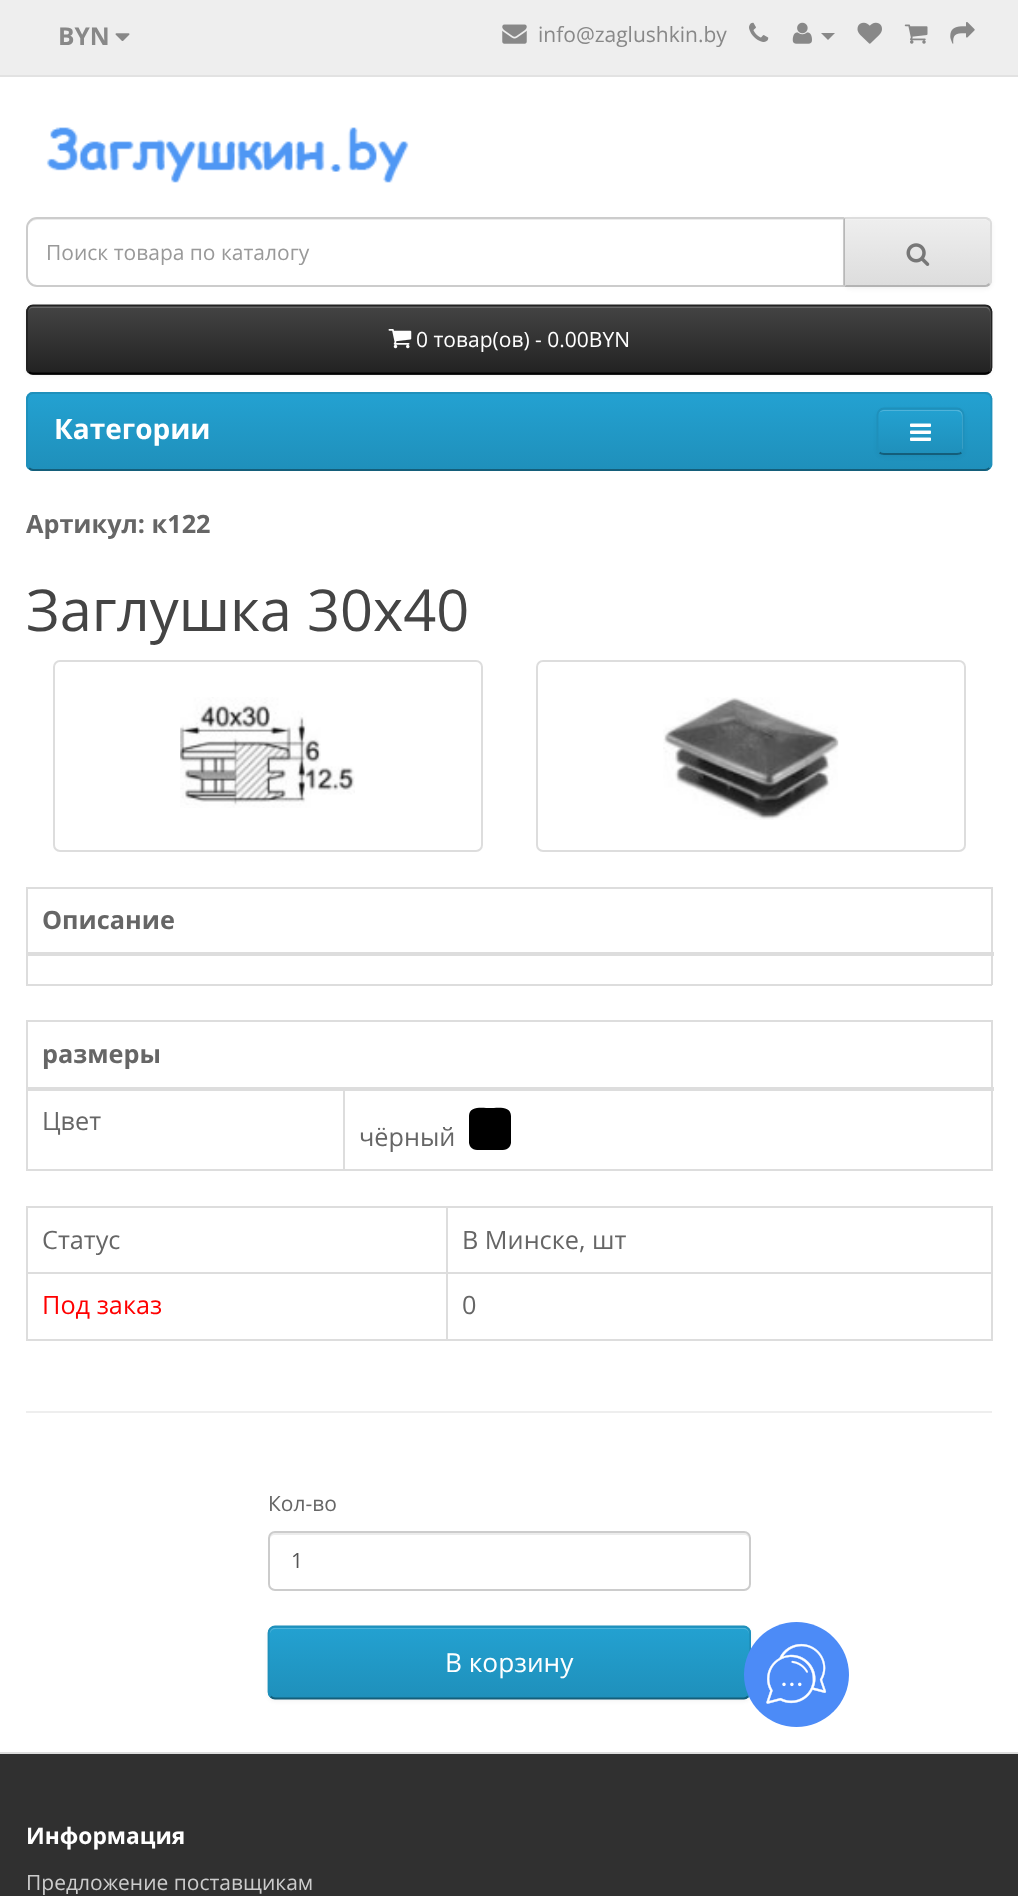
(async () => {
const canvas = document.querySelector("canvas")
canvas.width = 1018
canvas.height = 1896
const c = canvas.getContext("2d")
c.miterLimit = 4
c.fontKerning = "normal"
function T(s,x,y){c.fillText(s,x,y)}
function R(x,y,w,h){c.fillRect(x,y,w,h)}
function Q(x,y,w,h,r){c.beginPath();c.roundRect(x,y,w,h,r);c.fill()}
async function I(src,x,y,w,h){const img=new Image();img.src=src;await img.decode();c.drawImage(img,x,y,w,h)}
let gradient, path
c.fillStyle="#fff"
R(0,0,1018,1896)
c.fillStyle="#eee"
R(0,0,1018,75)
c.fillStyle="#e2e2e2"
R(0,75,1018,2)
c.font="bold 24.5px Open Sans"
c.fillStyle="#888"
T("BYN",58,45)
await I("1.png",115,33,15,8)
await I("2.png",502,24,25,20)
c.font="21px Open Sans"
T("info@zaglushkin.by",538,42)
await I("3.png",749,22,20,20)
await I("4.png",792,22,20,22)
path = new Path2D("M821 33h14l-7 7z")
c.fill(path)
await I("5.png",857,22,25,22)
await I("6.png",904,24,24,20)
await I("7.png",950,22,25,22)
await I("8.png",46,127,363,56)
c.fillStyle="#ececec"
path = new Path2D("M37 220h807v-1h-807c-6 0-9 5-9 10c0-5 4-9 9-9z")
c.fill(path)
c.beginPath()
c.roundRect(27,218,817,68,[10,0,0,10])
c.strokeStyle="#ccc"
c.lineWidth=2
c.stroke()
c.fillStyle="#999"
T("Поиск товара по каталогу",46,260)
c.fillStyle="#0000000d"
c.filter="blur(2px)"
c.beginPath()
c.roundRect(844,219,148,70,7)
c.fill()
c.filter="none"
c.fillStyle="#e7e7e7"
c.beginPath()
c.roundRect(844,217,148,70,[0,7,7,0])
c.fill()
c.save()
c.beginPath()
c.roundRect(844,217,148,70,[0,7,7,0])
c.clip()
gradient = c.createLinearGradient(918,219,918,285)
gradient.addColorStop(0,"#eee")
gradient.addColorStop(1,"#ddd")
c.fillStyle = gradient
R(845,219,147,66)
c.restore()
c.fillStyle="#ffffff33"
path = new Path2D("M845 220h117c32 0 28-5 28 25v38c1-1 1-2 1-3v-56c0-3-2-5-5-5h-141z")
c.fill(path)
c.fillStyle="#ddd"
path = new Path2D("M844 217l2 2h140l3 2l1-2c-1-1-3-2-5-2z")
c.fill(path)
path = new Path2D("M990 219c1 1 2 3 2 5v56c0 2-1 4-2 5l-1-2c1 0 1-2 1-3v-56c0-1 0-3-1-3z")
c.fill(path)
c.fillStyle="#b3b3b3"
path = new Path2D("M844 287h141c2 0 4-1 5-2l-1-2l-3 2h-140z")
c.fill(path)
c.fillStyle="#b7b7b7"
path = new Path2D("M845 219h1l-2-1v68l2-1h-1z")
c.fill(path)
await I("9.png",906,243,24,23)
c.fillStyle="#0000000d"
c.filter="blur(2px)"
c.beginPath()
c.roundRect(26,306,966,70,7)
c.fill()
c.filter="none"
c.fillStyle="#363636"
Q(26,305,966,70,7)
c.save()
c.beginPath()
c.roundRect(26,305,966,70,7)
c.clip()
gradient = c.createLinearGradient(509,306,509,373)
gradient.addColorStop(0,"#444")
gradient.addColorStop(1,"#222")
c.fillStyle = gradient
R(26,306,966,67)
c.restore()
c.fillStyle="#ffffff33"
path = new Path2D("M33 308h952c3 0 5 2 5 5v56l-1 3l2-3v-58c0-3-2-5-5-5h-953c-4 0-5 4-5 7c0-3 2-5 5-5z")
c.fill(path)
path = new Path2D("M989.5 372c-1 1-2.5 1.5-4.5 1.5h-952c-1.5 0-3-.5-4-1.5")
c.strokeStyle="#000"
c.lineWidth=1.8
c.stroke(path)
path = new Path2D("M29 372c-1-1.5-2-3-2-4.5v-56c0-1.5 1-3 2-4.5c1-1 2.5-1.5 4-1.5h952c2 0 3.5 .5 4.5 1.5c1 1.5 2 3 2 4.5v56c0 1.5-1 3-2 4.5")
c.strokeStyle="#222"
c.stroke(path)
await I("10.png",388,329,24,20)
c.fillStyle="#fff"
T("0 товар(ов) - 0.00BYN",416,347)
c.fillStyle="#229ac8"
Q(26,392,966,79,7)
c.save()
c.beginPath()
c.roundRect(26,392,966,79,7)
c.clip()
gradient = c.createLinearGradient(509,394,509,469)
gradient.addColorStop(0,"#23a1d1")
gradient.addColorStop(1,"#1f90bb")
c.fillStyle = gradient
R(26,394,966,75)
c.restore()
path = new Path2D("M989.5 468c-1 1-2.5 2-4.5 2h-952c-1.5 0-3-1-4-2")
c.strokeStyle="#145e7a"
c.stroke(path)
path = new Path2D("M29 468l-2-3v-66.5l1.5-3.5c1-1.5 3-2 4.5-2h952c2 0 4 .5 5 2l1.5 3.5v66.5l-2 3")
c.strokeStyle="#1f90bb"
c.stroke(path)
c.font="bold 28px Open Sans"
c.fillStyle="#fff"
T("Категории",54,439)
c.fillStyle="#0000000d"
c.filter="blur(2px)"
c.beginPath()
c.roundRect(877,410,87,47,7)
c.fill()
c.filter="none"
c.fillStyle="#229ac8"
Q(877,408,87,47,7)
c.save()
c.beginPath()
c.roundRect(877,408,87,47,7)
c.clip()
gradient = c.createLinearGradient(921,410,921,453)
gradient.addColorStop(0,"#23a1d1")
gradient.addColorStop(1,"#1f90bb")
c.fillStyle = gradient
R(877,410,87,43)
c.restore()
c.fillStyle="#ffffff33"
path = new Path2D("M884 411h61c19 0 17-1 17 16v24c1-1 1-2 1-3v-33c0-3-2-5-5-5h-74c-2 0-4 1-5 3c1-1 3-2 5-2z")
c.fill(path)
path = new Path2D("M961.5 452.5c-1 1-2.5 1.5-4.5 1.5h-73c-2 0-3.5-.5-4.5-1.5")
c.strokeStyle="#145e7a"
c.stroke(path)
path = new Path2D("M879.5 452.5c-1-1.5-2-3-2-4.5v-33c0-2 1-3.5 2-4.5c1-1 2.5-2 4.5-2h73c2 0 3.5 1 4.5 2c1 1 2 2.5 2 4.5v33c0 1.5-1 3-2 4.5")
c.strokeStyle="#1f90bb"
c.stroke(path)
await I("11.png",910,423,21,18)
c.font="bold 25.25px Open Sans"
c.fillStyle="#666"
T("Артикул: к122",26,533)
c.font="57.75px Open Sans"
c.fillStyle="#444"
T("Заглушка 30х40",26,631)
c.beginPath()
c.roundRect(54,661,428,190,6)
c.strokeStyle="#ddd"
c.lineWidth=2
c.stroke()
await I("12.png",180,697,175,111)
c.beginPath()
c.roundRect(537,661,428,190,6)
c.stroke()
await I("13.png",663,697,176,123)
c.fillStyle="#ddd"
R(26,887,966,2)
R(991,887,2,98)
R(26,984,966,2)
R(26,887,2,98)
R(26,952,968,4)
c.font="bold 25.25px Open Sans"
c.fillStyle="#666"
T("Описание",42,929)
c.fillStyle="#ddd"
R(26,1020,966,2)
R(991,1020,2,151)
R(26,1169,966,2)
R(26,1020,2,151)
R(343,1087,2,84)
R(26,1087,968,4)
c.fillStyle="#666"
T("размеры",42,1063)
c.font="25.25px Open Sans"
T("Цвет",42,1130)
T("чёрный",359,1146)
c.fillStyle="#000"
path = new Path2D("M511 1116v27c-1 7-7 7-12 7h-18c-5 0-11 0-12-7v-27c0-11 15-8 21-8c6 0 21-3 21 8z")
c.fill(path)
c.fillStyle="#ddd"
R(26,1206,966,2)
R(991,1206,2,135)
R(26,1339,966,2)
R(26,1206,2,135)
c.fillStyle="#666"
T("Статус",42,1249)
c.fillStyle="#ddd"
R(446,1272,546,2)
R(446,1272,2,69)
R(26,1272,422,2)
R(446,1206,2,68)
c.fillStyle="#666"
T("В Минске, шт",462,1249)
c.fillStyle="#f00"
T("Под заказ",42,1314)
c.fillStyle="#666"
T("0",462,1314)
c.fillStyle="#eee"
R(26,1411,966,2)
c.font="21px Open Sans"
c.fillStyle="#666"
T("Кол-во",268,1511)
c.fillStyle="#ececec"
path = new Path2D("M275 1535h469c3 0 5 2 5 5v-2c0-3-2-5-5-5h-469c-3 0-5 2-5 5v2c0-3 2-5 5-5z")
c.fill(path)
c.beginPath()
c.roundRect(269,1532,481,58,6)
c.strokeStyle="#ccc"
c.stroke()
c.fillStyle="#555"
T("1",291,1568)
c.fillStyle="#0000000d"
c.filter="blur(2px)"
c.beginPath()
c.roundRect(268,1628,483,73,7)
c.fill()
c.filter="none"
c.fillStyle="#229ac8"
Q(268,1626,483,73,7)
c.save()
c.beginPath()
c.roundRect(268,1626,483,73,7)
c.clip()
gradient = c.createLinearGradient(509,1628,509,1698)
gradient.addColorStop(0,"#23a1d1")
gradient.addColorStop(1,"#1f90bb")
c.fillStyle = gradient
R(268,1628,483,70)
c.restore()
c.fillStyle="#4fb4da"
path = new Path2D("M275 1629h469c3 0 5 3 5 5v-1c0-3-2-5-5-5h-469c-3 0-5 2-5 5v1c0-2 2-5 5-5z")
c.fill(path)
path = new Path2D("M748 1696.5c-1 1-2.5 2-4 2h-469c-2 0-3.5-1-4.5-2")
c.strokeStyle="#145e7a"
c.lineWidth=1.8
c.stroke(path)
path = new Path2D("M270.5 1696.5c-1-1-2-2.5-2-4.5v-59c0-2 1-3.5 2-4.5c1-1 2.5-2 4.5-2h469c1.5 0 3 1 4 2c1 1 2 2.5 2 4.5v59c0 2-1 3.5-2 4.5")
c.strokeStyle="#1f90bb"
c.stroke(path)
c.font="26.25px Open Sans"
c.fillStyle="#fff"
T("В корзину",445,1672)
c.fillStyle="#4c8bf7"
c.beginPath()
c.arc(796.5,1674.5,52.5,0,7)
c.fill()
await I("14.png",766,1643,61,61)
c.fillStyle="#303030"
R(0,1754,1018,142)
c.fillStyle="#ddd"
R(0,1752,1018,2)
c.font="bold 22.75px Open Sans"
c.fillStyle="#fff"
T("Информация",26,1844)
c.font="21px Open Sans"
c.fillStyle="#ccc"
T("Предложение поставщикам",26,1890)
})()
